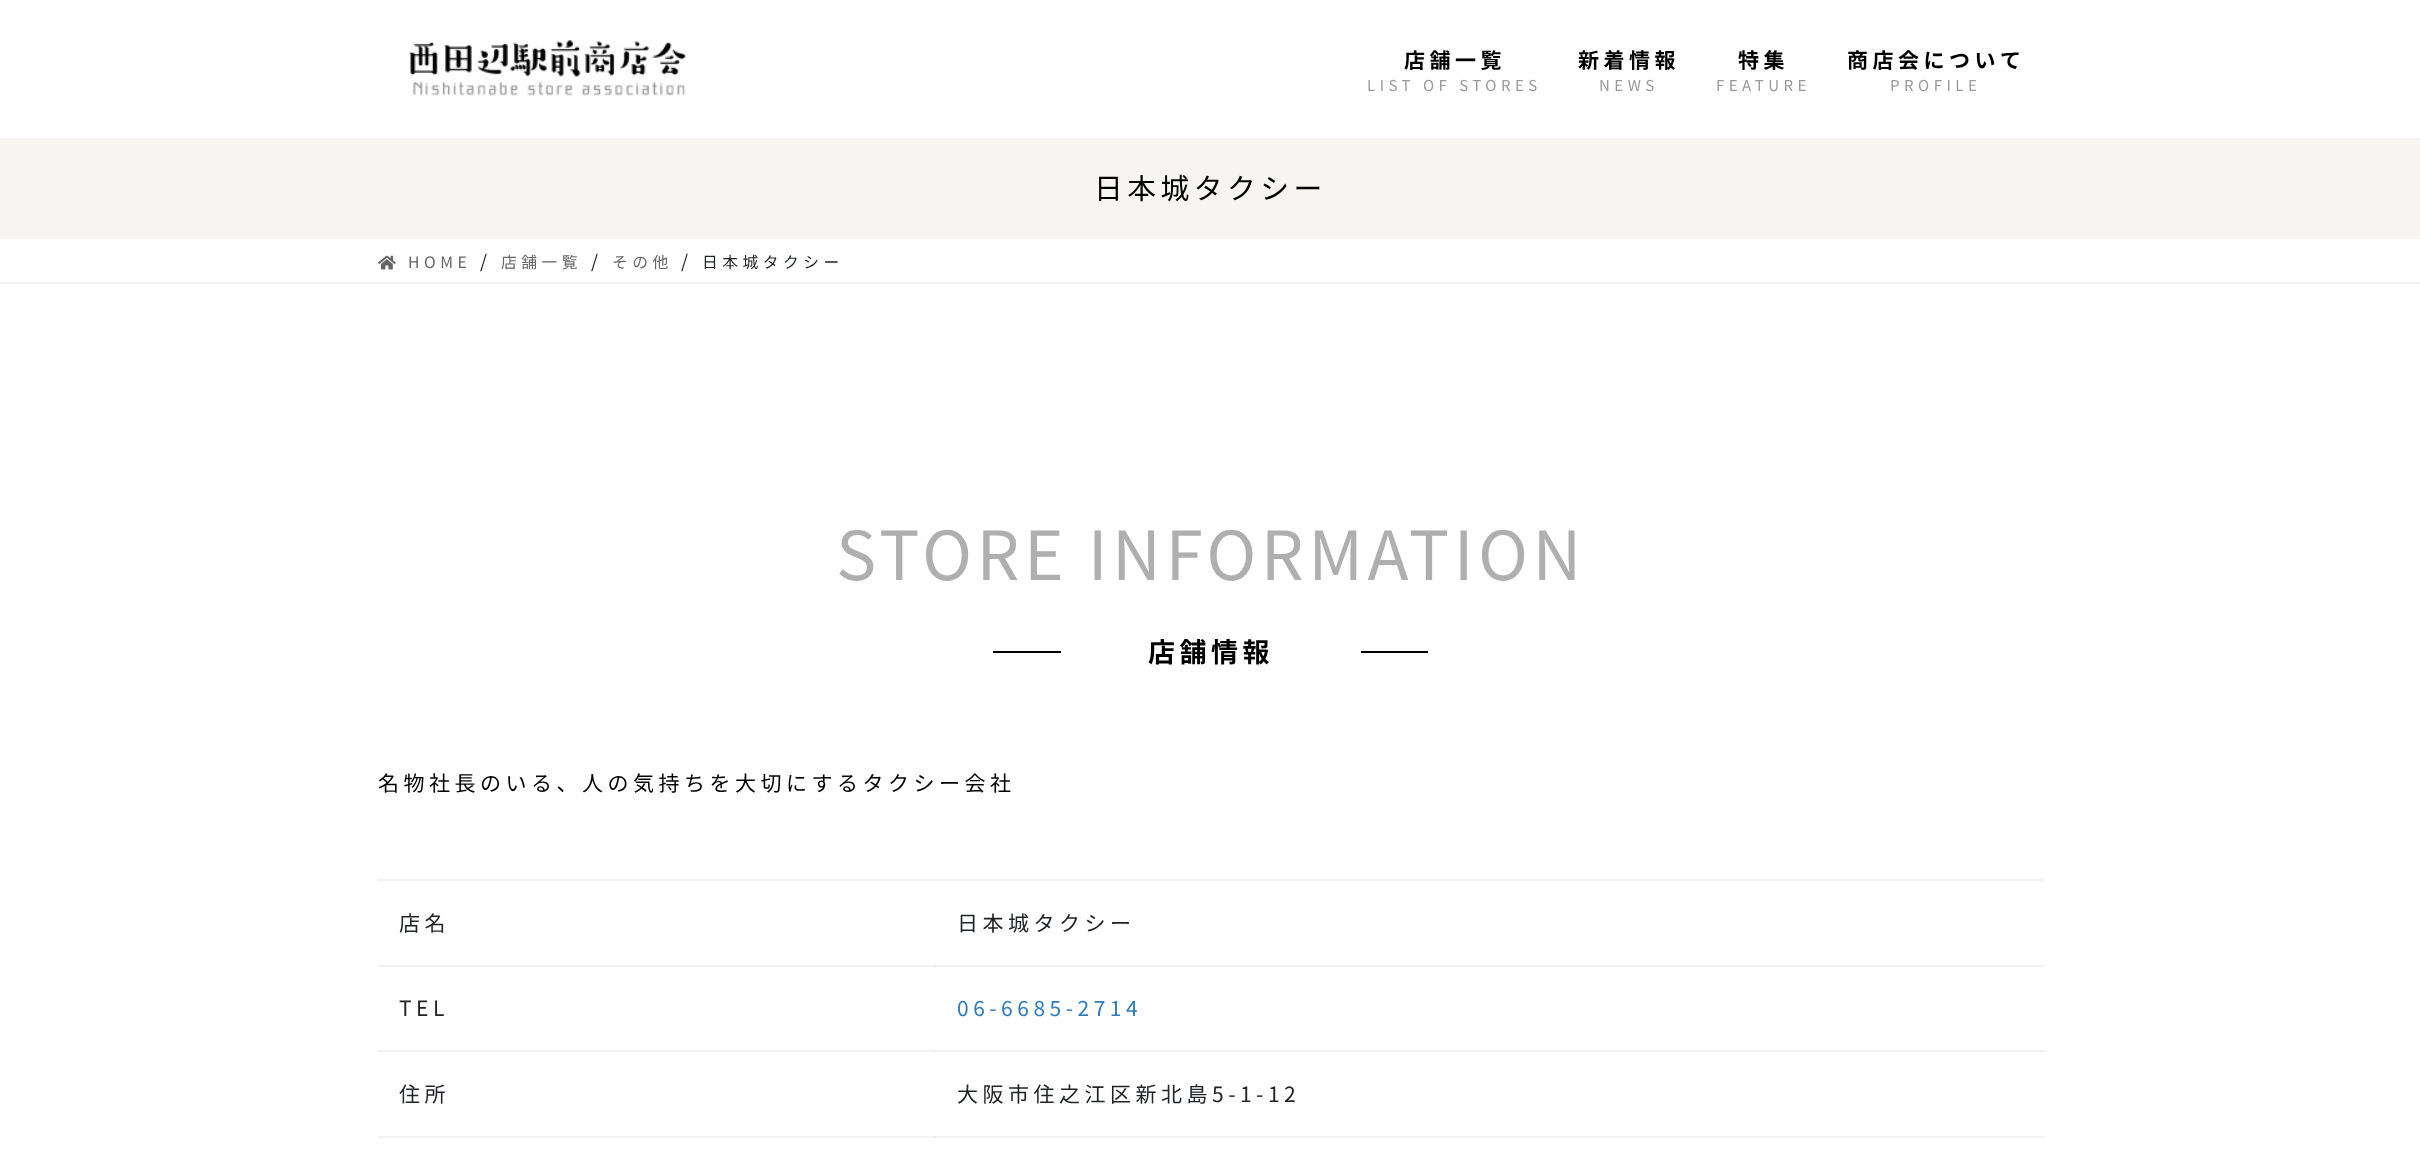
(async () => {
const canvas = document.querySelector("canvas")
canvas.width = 2420
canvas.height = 1159
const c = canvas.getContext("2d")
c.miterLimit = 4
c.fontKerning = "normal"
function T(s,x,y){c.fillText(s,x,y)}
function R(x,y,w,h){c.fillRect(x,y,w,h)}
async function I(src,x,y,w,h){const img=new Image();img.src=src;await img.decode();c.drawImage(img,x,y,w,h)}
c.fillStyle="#fff"
R(0,0,2420,1159)
c.fillStyle="#f2f2f2"
R(378,965,1667,2)
R(378,1050,1667,2)
R(378,1136,1667,2)
await I("1.png",409,40,277,56)
c.letterSpacing="4.5px"
c.font="bold 21px Noto Sans JP"
c.fillStyle="#000"
T("店舗一覧",1404,68)
c.font="15px Noto Sans JP"
c.fillStyle="#999"
T("LIST OF STORES",1367,91)
c.font="bold 21px Noto Sans JP"
c.fillStyle="#000"
T("新着情報",1578,68)
c.font="15px Noto Sans JP"
c.fillStyle="#999"
T("NEWS",1599,91)
c.font="bold 21px Noto Sans JP"
c.fillStyle="#000"
T("特集",1738,68)
c.font="15px Noto Sans JP"
c.fillStyle="#999"
T("FEATURE",1716,91)
c.font="bold 21px Noto Sans JP"
c.fillStyle="#000"
T("商店会について",1847,68)
c.font="15px Noto Sans JP"
c.fillStyle="#999"
T("PROFILE",1890,91)
c.fillStyle="#f7f5f2"
R(0,138,2420,101)
c.font="28.75px Noto Sans JP"
c.fillStyle="#000"
T("日本城タクシー",1094,199)
c.fillStyle="#f2f2f2"
R(0,282,2420,2)
await I("2.png",378,255,18,15)
c.font="15.75px Noto Sans JP"
c.fillStyle="#666"
T("HOME",408,268)
c.font="18px Noto Sans JP"
c.fillStyle="#212529"
T("/",480,268)
c.font="15.75px Noto Sans JP"
c.fillStyle="#666"
T("店舗一覧",501,268)
c.font="18px Noto Sans JP"
c.fillStyle="#212529"
T("/",591,268)
c.font="15.75px Noto Sans JP"
c.fillStyle="#666"
T("その他",612,268)
c.font="18px Noto Sans JP"
c.fillStyle="#212529"
T("/",681,268)
c.font="15.75px Noto Sans JP"
T("日本城タクシー",702,268)
c.font="67.5px Noto Sans JP"
c.fillStyle="#afafaf"
T("STORE INFORMATION",836,580)
c.fillStyle="#000"
R(993,651,68,2)
c.font="bold 27px Noto Sans JP"
T("店舗情報",1148,662)
R(1361,651,67,2)
c.font="21px Noto Sans JP"
T("名物社長のいる、人の気持ちを大切にするタクシー会社",378,791)
c.fillStyle="#f2f2f2"
R(378,879,1665,2)
c.fillStyle="#212529"
T("店名",399,931)
c.fillStyle="#e6e6e6"
R(935,965,1,2)
c.fillStyle="#212529"
T("日本城タクシー",957,931)
T("TEL",399,1016)
c.fillStyle="#e6e6e6"
R(935,1050,1,2)
c.fillStyle="#337ab7"
T("06-6685-2714",957,1016)
c.fillStyle="#212529"
T("住所",399,1102)
c.fillStyle="#e6e6e6"
R(935,1136,1,2)
c.fillStyle="#212529"
T("大阪市住之江区新北島5-1-12",957,1102)
})()
